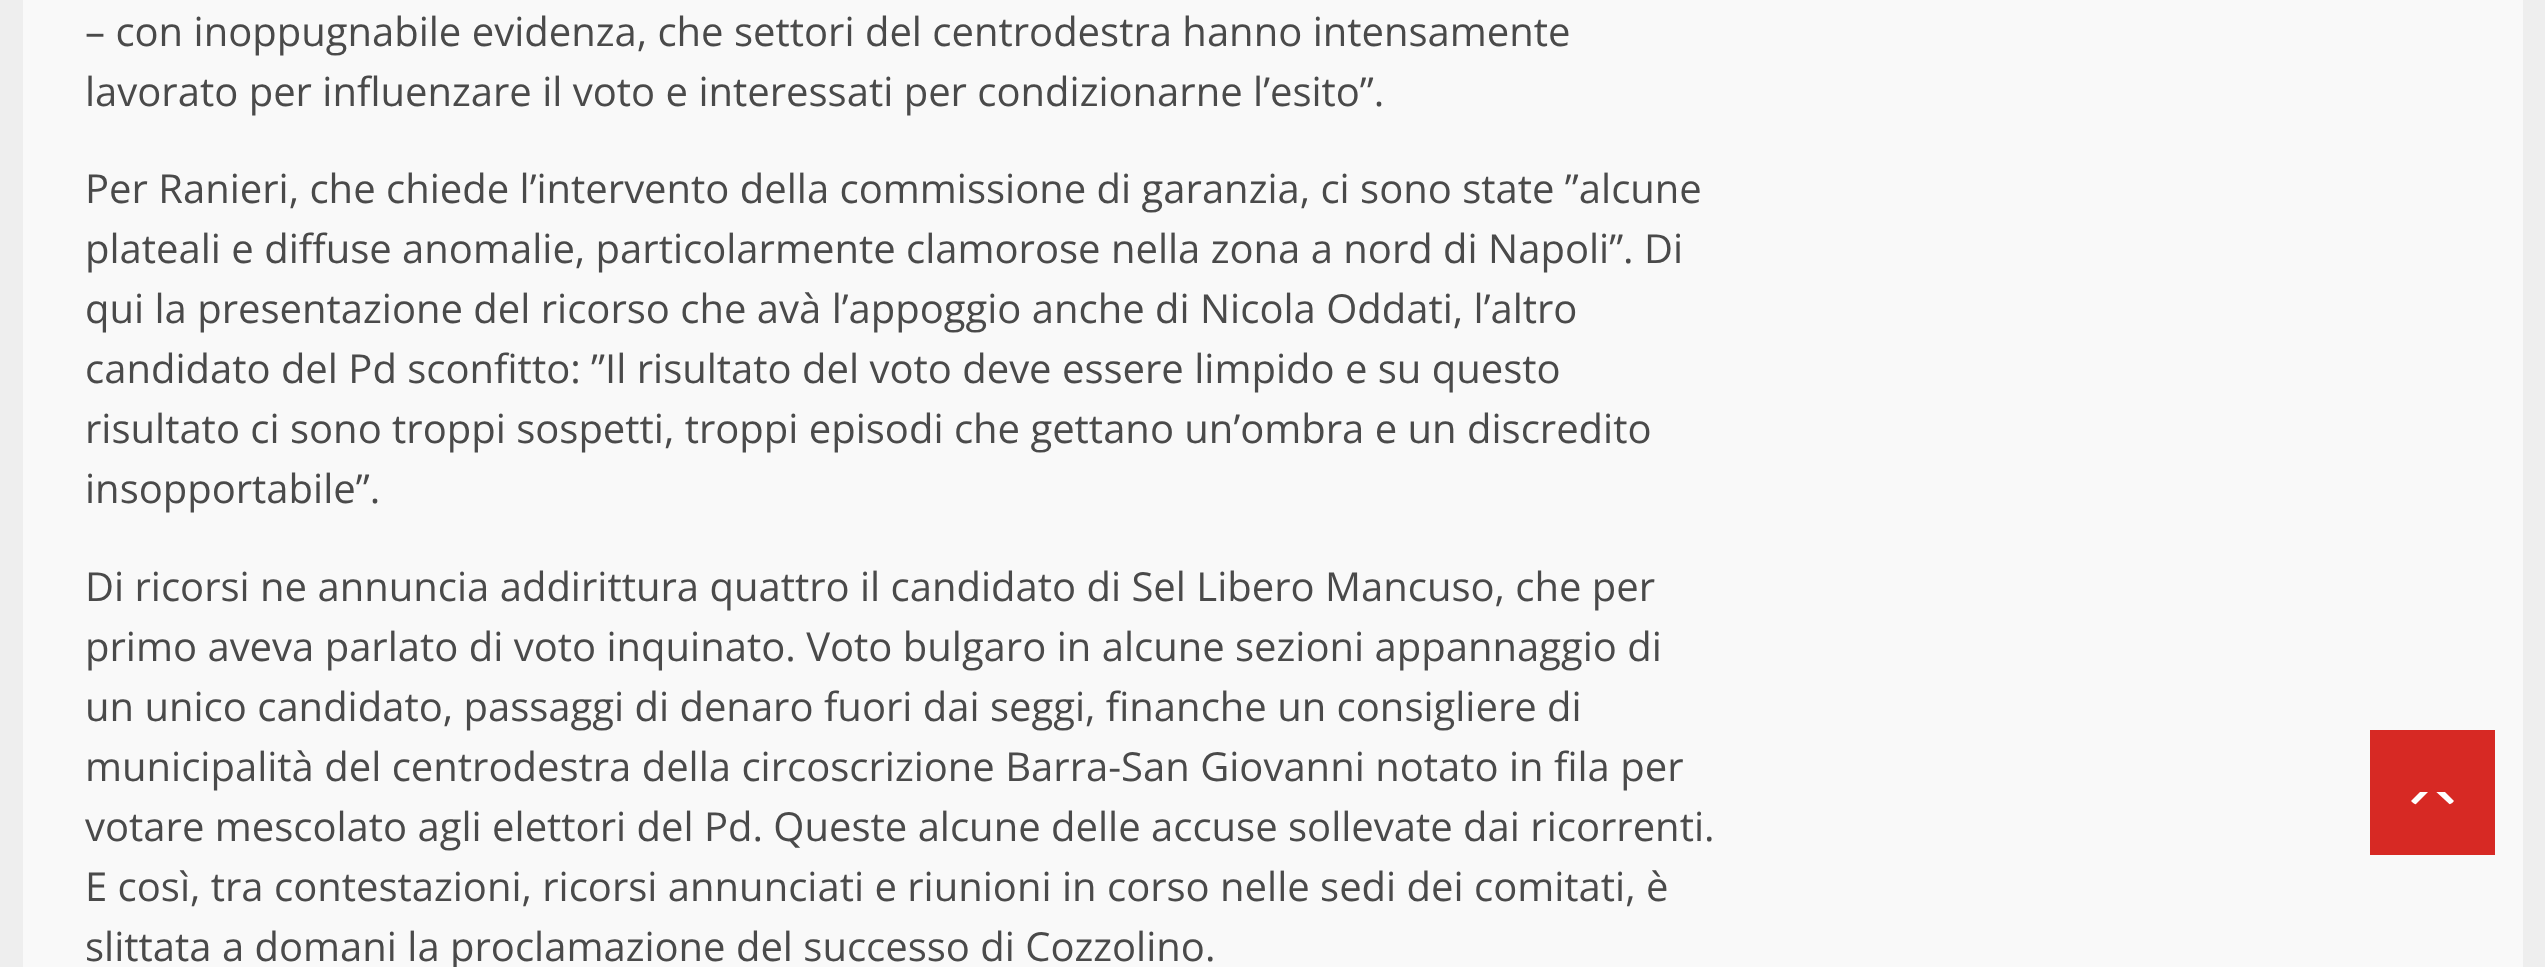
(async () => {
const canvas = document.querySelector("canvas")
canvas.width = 2545
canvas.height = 967
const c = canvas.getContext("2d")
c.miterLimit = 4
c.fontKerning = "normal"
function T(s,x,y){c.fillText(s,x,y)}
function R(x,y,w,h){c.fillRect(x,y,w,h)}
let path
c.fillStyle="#eee"
R(0,0,2545,967)
c.fillStyle="#f9f9f9"
R(23,0,2500,967)
c.font="40px Open Sans"
c.fillStyle="#4a4a4a"
T("– con inoppugnabile evidenza, che settori del centrodestra hanno intensamente",85,46)
T("lavorato per influenzare il voto e interessati per condizionarne l’esito”.",85,106)
T("Per Ranieri, che chiede l’intervento della commissione di garanzia, ci sono state ”alcune",85,203)
T("plateali e diffuse anomalie, particolarmente clamorose nella zona a nord di Napoli”. Di",85,263)
T("qui la presentazione del ricorso che avà l’appoggio anche di Nicola Oddati, l’altro",85,323)
T("candidato del Pd sconfitto: ”Il risultato del voto deve essere limpido e su questo",85,383)
T("risultato ci sono troppi sospetti, troppi episodi che gettano un’ombra e un discredito",85,443)
T("insopportabile”.",85,503)
T("Di ricorsi ne annuncia addirittura quattro il candidato di Sel Libero Mancuso, che per",85,601)
T("primo aveva parlato di voto inquinato. Voto bulgaro in alcune sezioni appannaggio di",85,661)
T("un unico candidato, passaggi di denaro fuori dai seggi, finanche un consigliere di",85,721)
T("municipalità del centrodestra della circoscrizione Barra-San Giovanni notato in fila per",85,781)
T("votare mescolato agli elettori del Pd. Queste alcune delle accuse sollevate dai ricorrenti.",85,841)
T("E così, tra contestazioni, ricorsi annunciati e riunioni in corso nelle sedi dei comitati, è",85,901)
T("slittata a domani la proclamazione del successo di Cozzolino.",85,961)
c.fillStyle="#d72924"
R(2370,730,125,125)
c.fillStyle="#fff"
path = new Path2D("M2420 805h25c3 0 7-1 9-4l-9-9h-25l-9 9c3 3 5 4 9 4z")
c.fill(path)
c.fillStyle="#d72924"
path = new Path2D("M2458 812h-50l24-24z")
c.fill(path)
})()
